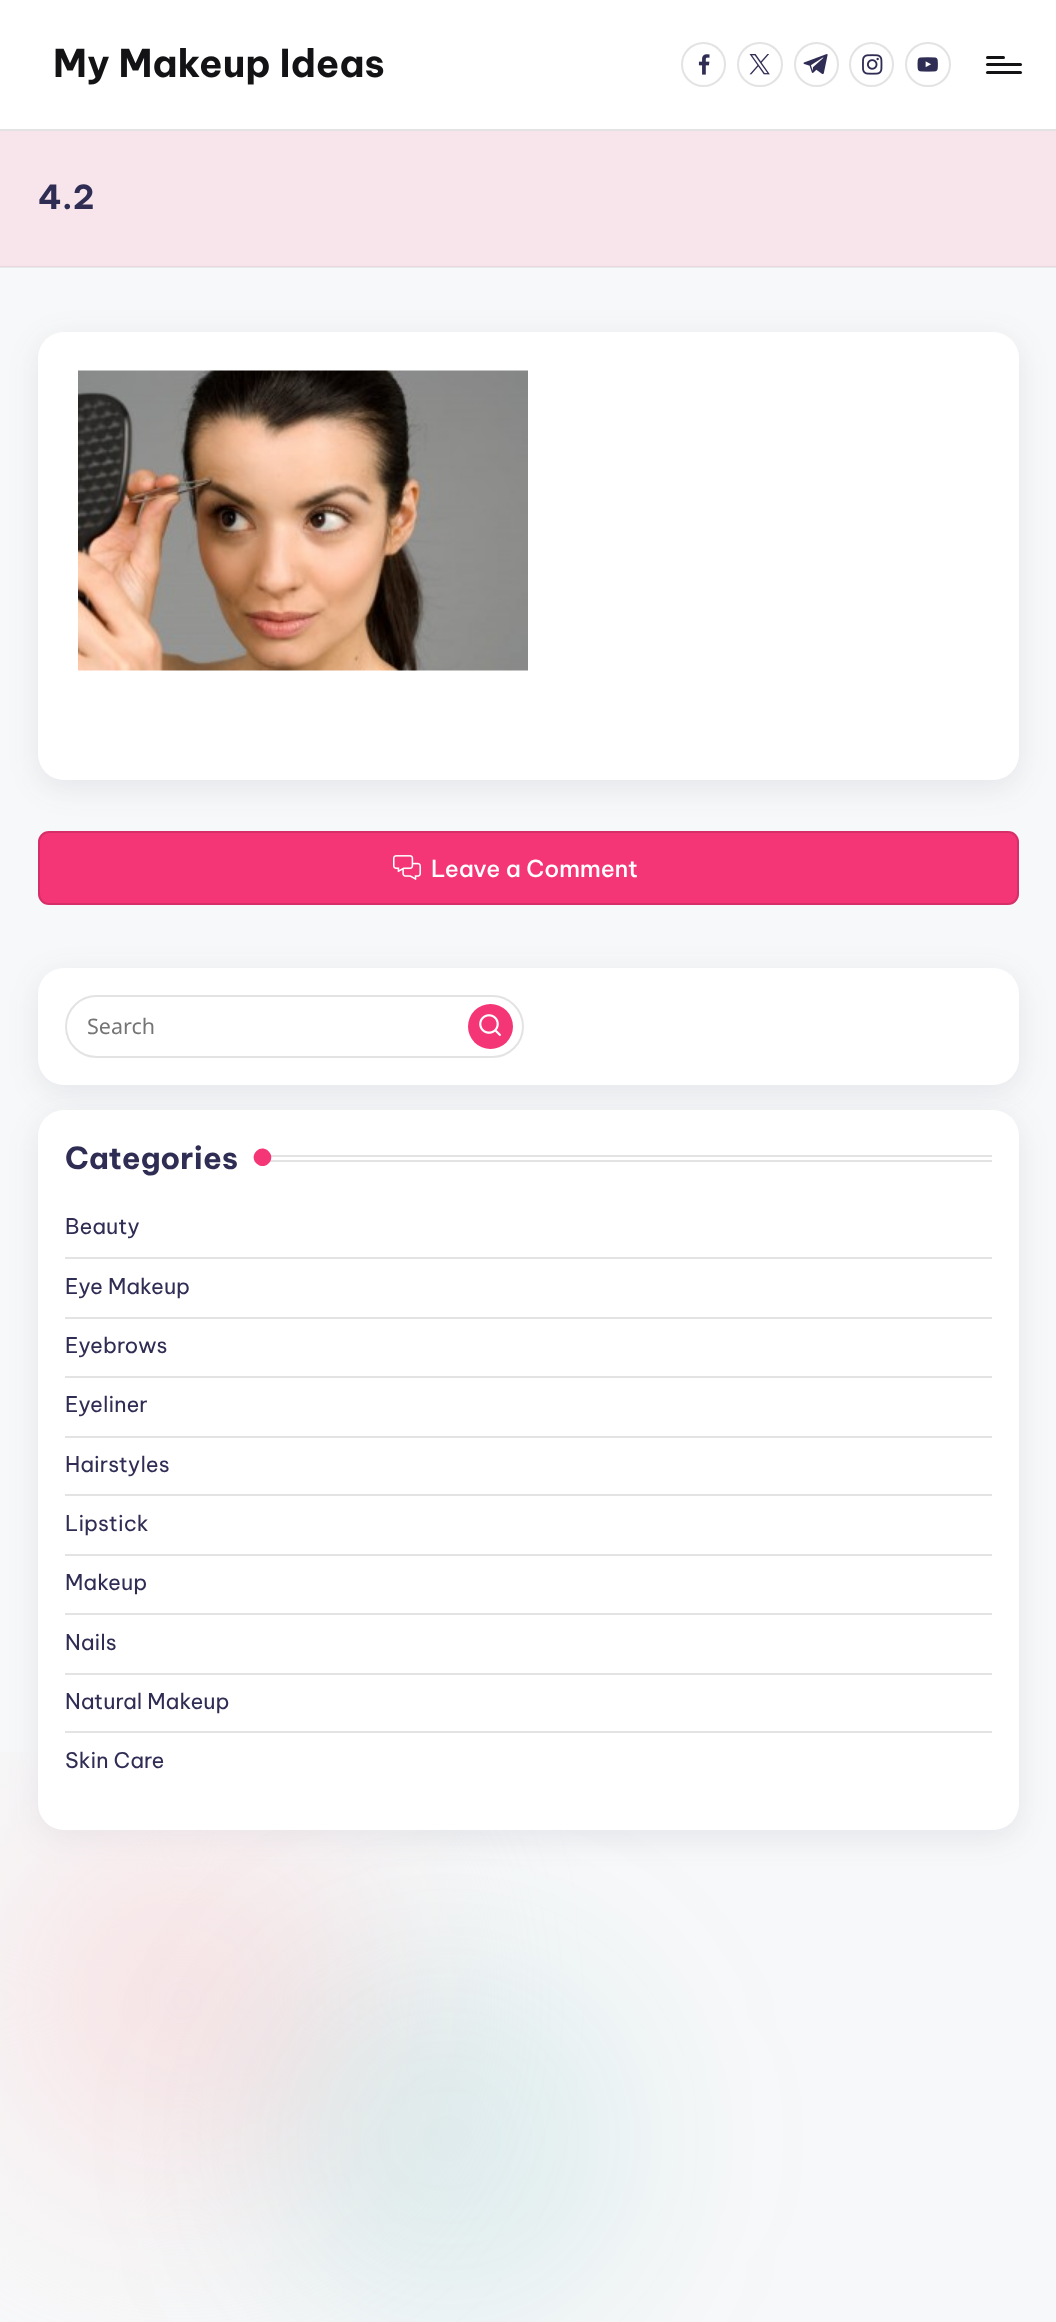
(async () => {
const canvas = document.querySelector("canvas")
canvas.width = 1056
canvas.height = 2322
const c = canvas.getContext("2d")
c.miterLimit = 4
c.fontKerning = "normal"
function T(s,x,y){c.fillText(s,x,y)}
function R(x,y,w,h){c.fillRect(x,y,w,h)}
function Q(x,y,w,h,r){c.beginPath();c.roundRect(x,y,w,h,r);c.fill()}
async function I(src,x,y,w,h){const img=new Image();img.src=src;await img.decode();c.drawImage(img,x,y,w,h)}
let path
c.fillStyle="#f7f8f9"
R(0,0,1056,2322)
c.fillStyle="#e8e9ea"
R(0,267,1056,1)
c.fillStyle="#fff"
R(0,0,1056,129)
c.fillStyle="#e3e3e3"
R(0,129,1056,2)
c.font="bold 38.25px Be Vietnam Pro"
c.fillStyle="#131315"
T("My Makeup Ideas",53,77)
c.beginPath()
c.arc(703.5,64.5,21.5,0,7)
c.strokeStyle="#e3e3e3"
c.lineWidth=2
c.stroke()
await I("1.png",698,54,12,21)
c.beginPath()
c.roundRect(738,43,44,43,21.5)
c.stroke()
await I("2.png",749,54,21,21)
c.beginPath()
c.arc(816.5,64.5,21.5,0,7)
c.stroke()
await I("3.png",803,54,25,21)
c.beginPath()
c.arc(871.5,64.5,21.5,0,7)
c.stroke()
await I("4.png",862,54,21,21)
c.beginPath()
c.roundRect(906,43,44,43,21.5)
c.stroke()
await I("5.png",917,57,21,15)
Q(986,63,36,3,1.5)
Q(986,56,19,3,1.5)
Q(986,71,36,3,1.5)
c.fillStyle="#f7e5eb"
R(0,131,1056,135)
c.fillStyle="#e8d7dd"
R(0,266,1056,1)
c.font="bold 33px Be Vietnam Pro"
c.fillStyle="#302d55"
T("4.2",38,209)
c.fillStyle="#4543601a"
c.filter="blur(15px)"
c.beginPath()
c.roundRect(38,339,981,449,26)
c.fill()
c.filter="none"
c.fillStyle="#fff"
Q(38,332,981,448,26)
await I("6.png",78,370,450,301)
c.fillStyle="#f43676"
Q(38,831,981,74,11)
c.beginPath()
c.roundRect(39,832,979,72,10)
c.strokeStyle="#0000001f"
c.stroke()
await I("7.png",393,855,28,25)
c.font="500 23.25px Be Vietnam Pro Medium"
c.fillStyle="#fff"
T("Leave a Comment",431,877)
c.fillStyle="#4543601a"
c.filter="blur(15px)"
c.beginPath()
c.roundRect(38,975,981,117,26)
c.fill()
c.filter="none"
c.fillStyle="#fff"
Q(38,968,981,117,26)
c.beginPath()
c.roundRect(66,996,457,61,30.5)
c.strokeStyle="#e3e3e3"
c.stroke()
c.font="21.5px Noto Sans"
c.fillStyle="#757575"
T("Search",87,1034)
c.fillStyle="#f43676"
c.beginPath()
c.arc(490.5,1026.5,22.5,0,7)
c.fill()
await I("8.png",479,1014,22,22)
c.fillStyle="#4543601a"
c.filter="blur(15px)"
c.beginPath()
c.roundRect(38,1118,981,720,26)
c.fill()
c.filter="none"
c.save()
c.beginPath()
c.rect(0,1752,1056,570)
c.clip()
c.fillStyle="#f7e3e5"
c.filter="blur(96px)"
c.beginPath()
c.roundRect(0,1817,366,366,183)
c.fill()
c.filter="none"
c.restore()
c.fillStyle="#04868b1a"
c.filter="blur(96px)"
c.beginPath()
c.roundRect(264,1956,368,366,183)
c.fill()
c.filter="none"
c.fillStyle="#fff"
Q(38,1110,981,720,26)
c.font="bold 30.5px Be Vietnam Pro"
c.fillStyle="#302d55"
T("Categories",65,1169)
c.fillStyle="#e3e3e3"
R(270,1155,722,2)
R(254,1160,738,2)
c.fillStyle="#f43676"
path = new Path2D("M256.5 1151c8-8 20.5 4.5 12 12.5c-8 8-20.5-4.5-12-12.5z")
c.fill(path)
c.font="21.5px Be Vietnam Pro"
c.fillStyle="#302d55"
T("Beauty",65,1234)
c.fillStyle="#e3e3e3"
R(65,1257,927,2)
c.fillStyle="#302d55"
T("Eye Makeup",65,1294)
c.fillStyle="#e3e3e3"
R(65,1317,927,2)
c.fillStyle="#302d55"
T("Eyebrows",65,1353)
c.fillStyle="#e3e3e3"
R(65,1376,927,2)
c.fillStyle="#302d55"
T("Eyeliner",65,1412)
c.fillStyle="#e3e3e3"
R(65,1436,927,2)
c.fillStyle="#302d55"
T("Hairstyles",65,1472)
c.fillStyle="#e3e3e3"
R(65,1494,927,2)
c.fillStyle="#302d55"
T("Lipstick",65,1531)
c.fillStyle="#e3e3e3"
R(65,1554,927,2)
c.fillStyle="#302d55"
T("Makeup",65,1590)
c.fillStyle="#e3e3e3"
R(65,1613,927,2)
c.fillStyle="#302d55"
T("Nails",65,1650)
c.fillStyle="#e3e3e3"
R(65,1673,927,2)
c.fillStyle="#302d55"
T("Natural Makeup",65,1709)
c.fillStyle="#e3e3e3"
R(65,1731,927,2)
c.fillStyle="#302d55"
T("Skin Care",65,1768)
})()
